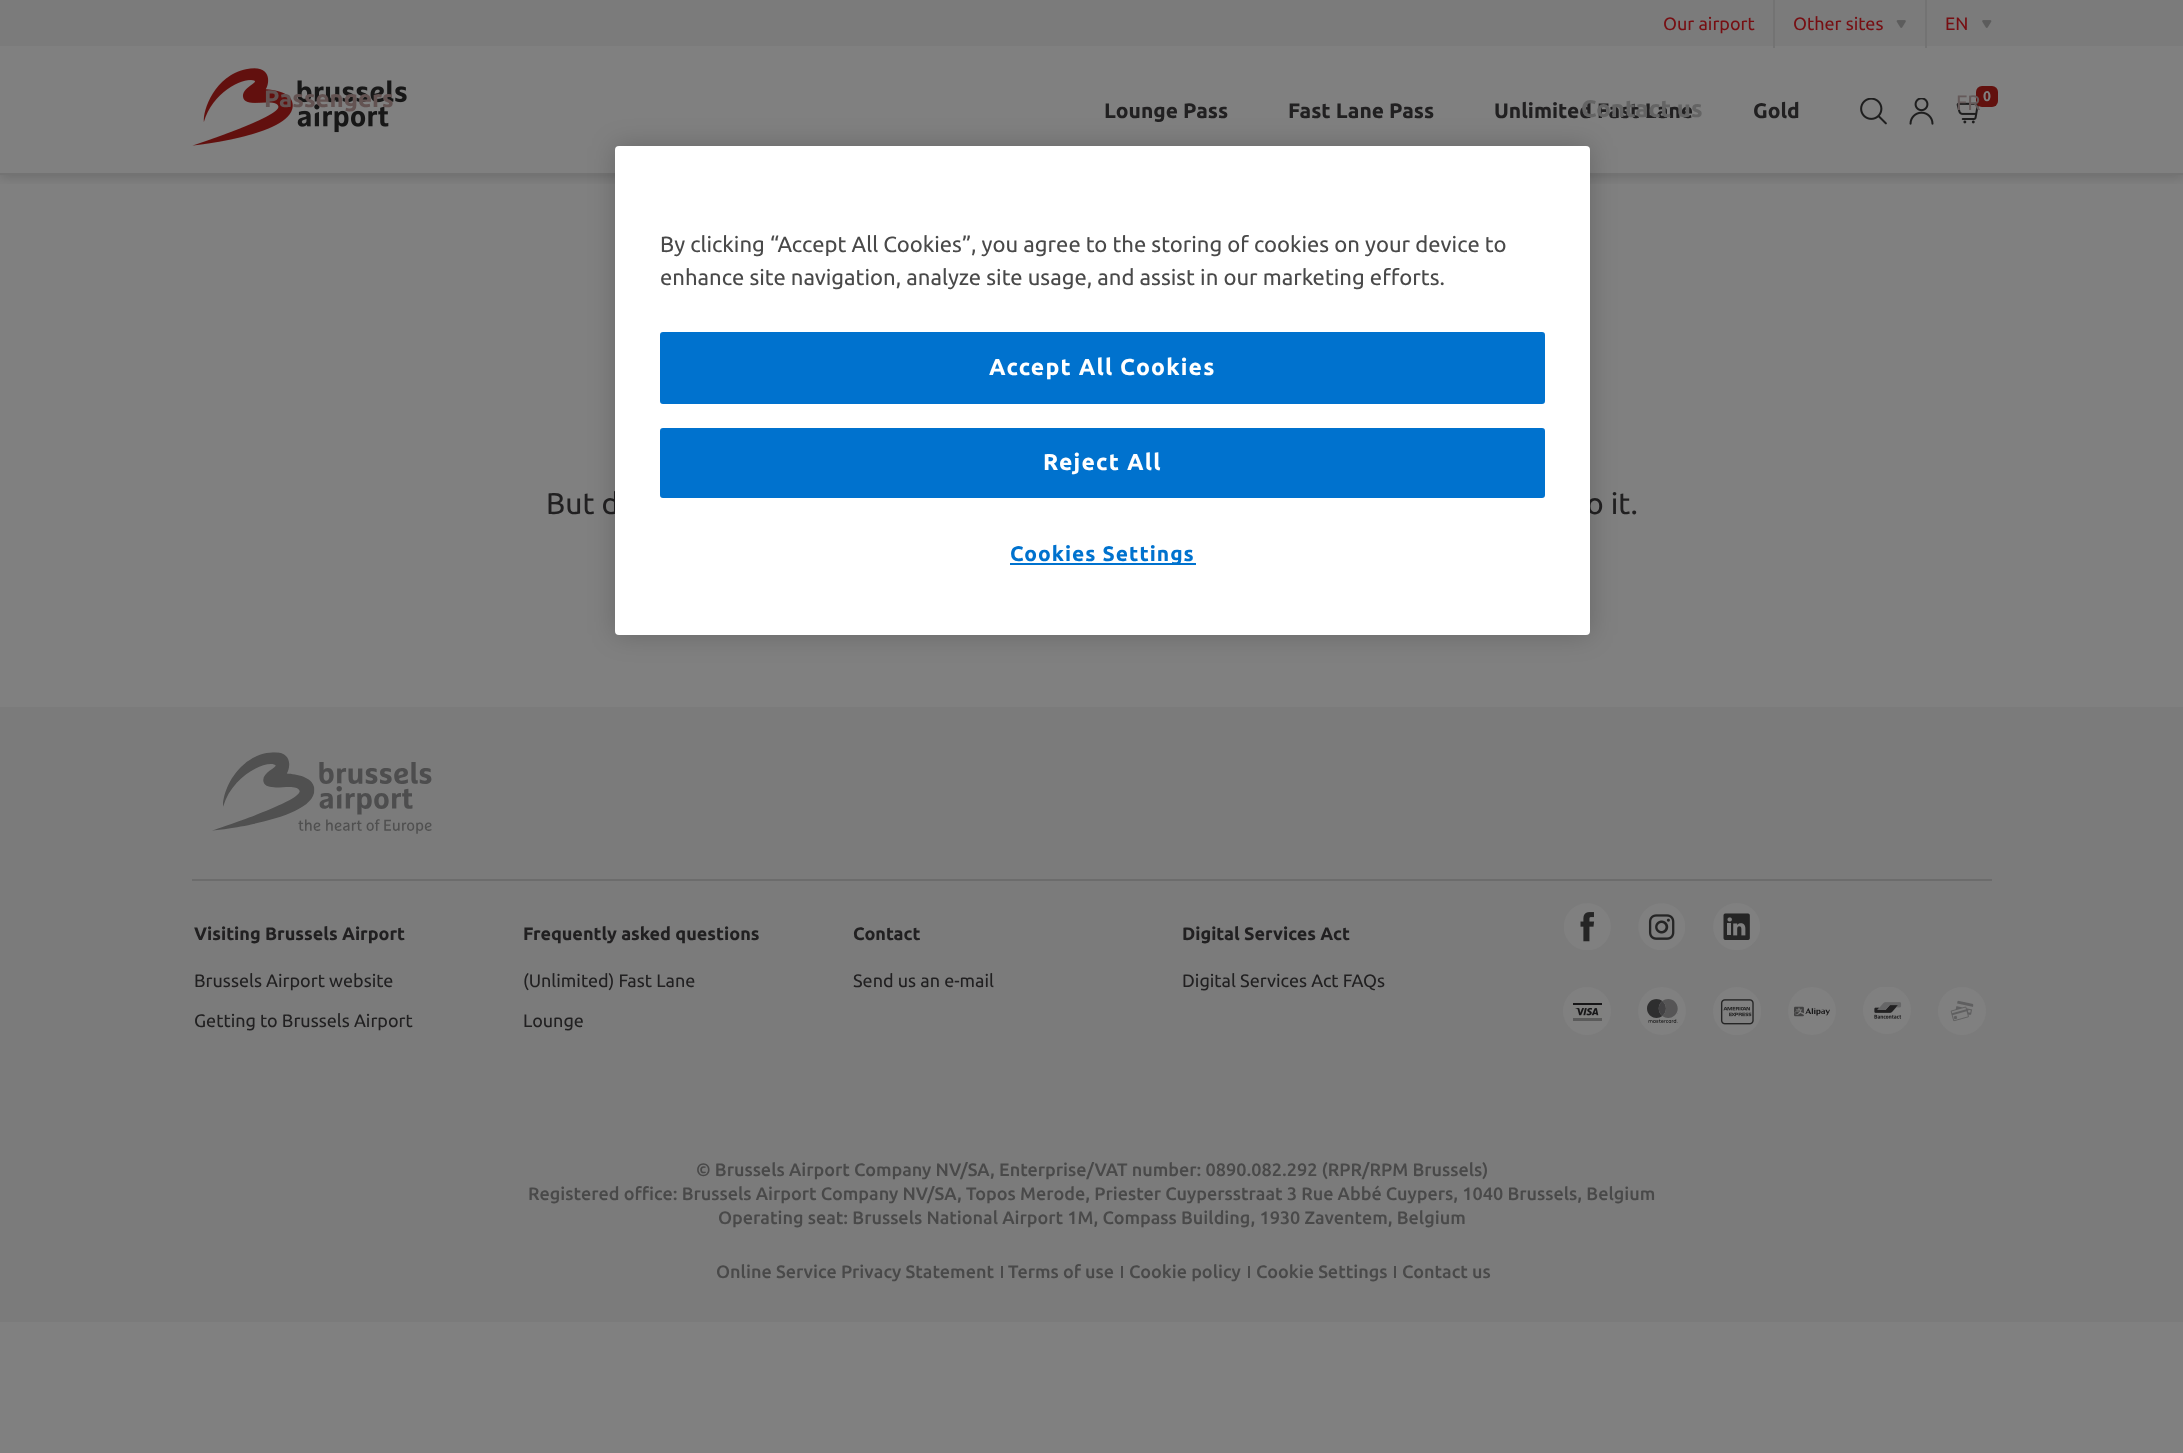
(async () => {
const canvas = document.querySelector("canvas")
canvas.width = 2183
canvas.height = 1453
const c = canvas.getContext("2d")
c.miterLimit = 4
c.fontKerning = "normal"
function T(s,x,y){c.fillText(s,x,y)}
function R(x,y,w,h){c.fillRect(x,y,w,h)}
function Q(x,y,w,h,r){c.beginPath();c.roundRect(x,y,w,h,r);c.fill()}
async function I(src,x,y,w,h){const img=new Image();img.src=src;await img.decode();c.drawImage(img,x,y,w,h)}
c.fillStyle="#808080"
R(0,0,2183,1453)
c.save()
c.beginPath()
c.rect(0,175,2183,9)
c.clip()
c.fillStyle="#00000029"
c.filter="blur(6px)"
c.beginPath()
c.rect(0,51,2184,126)
c.fill()
c.filter="none"
c.restore()
await I("3.png",192,68,215,78)
c.font="bold 24px Ubuntu"
c.fillStyle="#635352"
T("Passengers",264,107)
c.font="bold 21px Ubuntu"
c.fillStyle="#212021"
T("Unlimited Fast Lane",1494,118)
c.font="bold 24px Ubuntu"
c.fillStyle="#646464"
T("Contact us",1581,117)
c.fillStyle="#7b7b7b"
R(0,0,2183,46)
c.font="18px Ubuntu"
c.fillStyle="#770e12"
T("Our airport",1663,30)
c.fillStyle="#737373"
R(1773,0,2,48)
c.fillStyle="#770e12"
T("Other sites",1793,30)
await I("1.png",1896,20,10,8)
c.fillStyle="#737373"
R(1925,0,2,48)
c.fillStyle="#770e12"
T("EN",1945,30)
await I("2.png",1982,20,10,8)
await I("4.png",1956,102,23,22)
c.fillStyle="#62110e"
Q(1976,86,22,21,6)
c.font="21px Ubuntu"
c.fillStyle="#655a5a"
T("FR",1956,110)
c.fillStyle="#737373"
R(0,173,2183,2)
c.font="bold 14px Ubuntu"
c.fillStyle="#808080"
T("0",1983,101)
await I("5.png",1860,98,27,27)
await I("6.png",1909,98,25,27)
c.font="bold 21px Ubuntu"
c.fillStyle="#212021"
T("Lounge Pass",1104,118)
T("Fast Lane Pass",1288,118)
T("Gold",1753,118)
c.font="30px Ubuntu"
T("But d",546,514)
T("o it.",1586,514)
c.fillStyle="#7b7b7b"
R(0,707,2183,615)
c.fillStyle="#6c6c6c"
R(192,879,1800,2)
await I("7.png",212,752,220,82)
c.font="bold 18px Ubuntu"
c.fillStyle="#212021"
T("Visiting Brussels Airport",194,940)
c.font="18px Ubuntu"
T("Brussels Airport website",194,987)
T("Getting to Brussels Airport",194,1027)
c.font="bold 18px Ubuntu"
T("Frequently asked questions",523,940)
c.font="18px Ubuntu"
T("(Unlimited) Fast Lane",523,987)
T("Lounge",523,1027)
c.font="bold 18px Ubuntu"
T("Contact",853,940)
c.font="18px Ubuntu"
T("Send us an e-mail",853,987)
c.font="bold 18px Ubuntu"
T("Digital Services Act",1182,940)
c.font="18px Ubuntu"
T("Digital Services Act FAQs",1182,987)
await I("8.png",1564,903,47,47)
await I("9.png",1638,903,47,47)
await I("10.png",1713,903,47,47)
await I("11.png",1563,987,48,48)
await I("12.png",1638,987,48,48)
await I("13.png",1713,987,48,48)
await I("14.png",1788,987,48,48)
await I("15.png",1863,987,48,47)
await I("16.png",1938,987,48,48)
c.font="500 18px Ubuntu"
c.fillStyle="#494949"
T("© Brussels Airport Company NV/SA, Enterprise/VAT number: 0890.082.292 (RPR/RPM Brussels)",696,1176)
T("Registered office: Brussels Airport Company NV/SA, Topos Merode, Priester Cuypersstraat 3 Rue Abbé Cuypers, 1040 Brussels, Belgium",528,1200)
T("Operating seat: Brussels National Airport 1M, Compass Building, 1930 Zaventem, Belgium",718,1224)
T("Online Service Privacy Statement",716,1278)
R(1001,1266,2,12)
T("Terms of use",1008,1278)
R(1121,1266,2,12)
T("Cookie policy",1129,1278)
R(1248,1266,2,12)
T("Cookie Settings",1256,1278)
R(1394,1266,2,12)
T("Contact us",1402,1278)
c.fillStyle="#00000033"
c.filter="blur(13.5px)"
c.beginPath()
c.roundRect(615,146,975,489,4)
c.fill()
c.filter="none"
c.fillStyle="#fff"
Q(615,146,975,489,4)
c.font="22.05px Ubuntu"
c.fillStyle="#494949"
T("By clicking “Accept All Cookies”, you agree to the storing of cookies on your device to",660,252)
T("enhance site navigation, analyze site usage, and assist in our marketing efforts.",660,285)
c.fillStyle="#0072ce"
c.beginPath()
c.roundRect(661,333,883,70,2)
c.fill()
c.strokeStyle="#0072ce"
c.lineWidth=2
c.stroke()
c.letterSpacing="1.2px"
c.font="bold 23px Ubuntu"
c.fillStyle="#fff"
T("Accept All Cookies",989,375)
c.fillStyle="#0072ce"
c.beginPath()
c.roundRect(661,429,883,68,2)
c.fill()
c.stroke()
c.fillStyle="#fff"
T("Reject All",1043,470)
c.fillStyle="#0072ce"
R(1010,563,186,2)
c.letterSpacing="1px"
c.font="bold 21px Ubuntu"
T("Cookies Settings",1010,561)
})()
